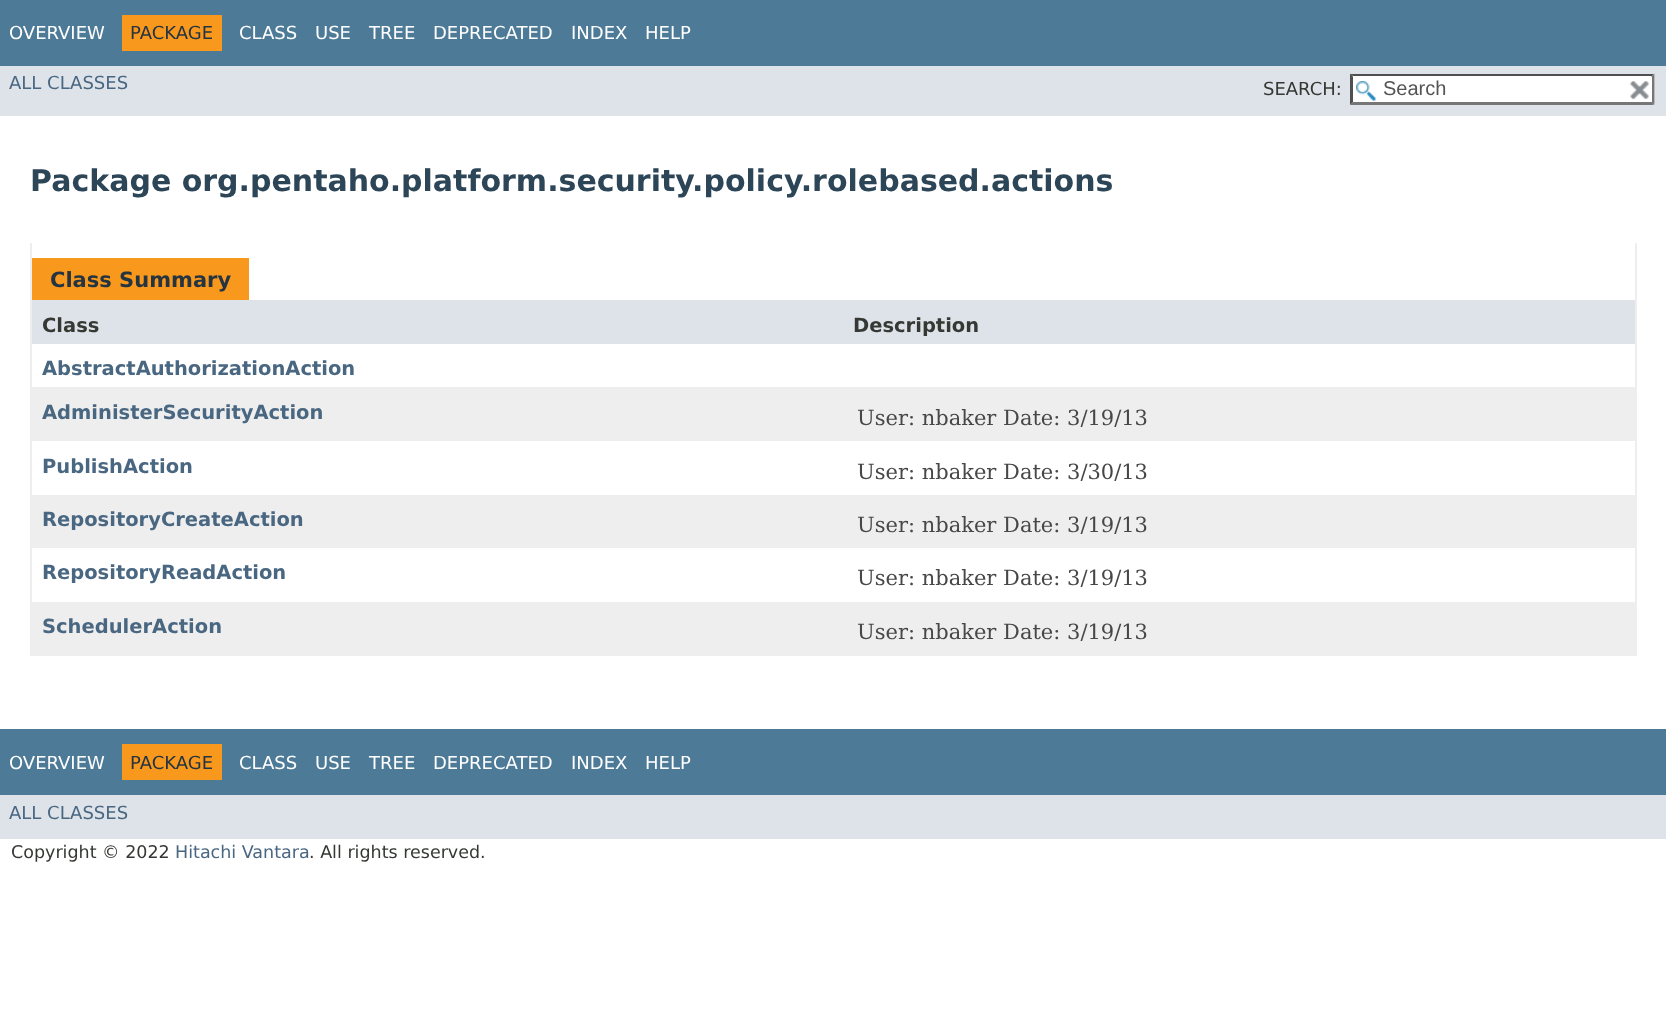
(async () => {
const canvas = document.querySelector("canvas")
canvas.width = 1666
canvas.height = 1016
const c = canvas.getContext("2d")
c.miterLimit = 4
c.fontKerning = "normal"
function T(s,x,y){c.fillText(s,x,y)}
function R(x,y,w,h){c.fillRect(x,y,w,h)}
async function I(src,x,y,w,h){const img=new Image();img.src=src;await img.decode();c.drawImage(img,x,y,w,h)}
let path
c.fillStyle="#fff"
R(0,0,1666,1016)
c.fillStyle="#4d7a97"
R(0,0,1666,66)
c.font="18px DejaVu Sans"
c.fillStyle="#fff"
T("OVERVIEW",9,39)
c.fillStyle="#f8981d"
R(122,15,100,36)
c.fillStyle="#253441"
T("PACKAGE",130,39)
c.fillStyle="#fff"
T("CLASS",239,39)
T("USE",315,39)
T("TREE",369,39)
T("DEPRECATED",433,39)
T("INDEX",571,39)
T("HELP",645,39)
c.fillStyle="#dee3e9"
R(0,66,1666,50)
c.fillStyle="#4a6782"
T("ALL CLASSES",9,89)
c.fillStyle="#353833"
T("SEARCH:",1263,95)
c.fillStyle="#fff"
R(1350,74,305,31)
await I("1.png",1356,81,20,20)
c.fillStyle="#4f4f4f"
path = new Path2D("M1350 74h304l-2 2h-299z")
c.fill(path)
c.fillStyle="#767676"
path = new Path2D("M1654.5 73.5v31.5l-3-3v-25.5z")
c.fill(path)
path = new Path2D("M1654 105h-304l3-3h299z")
c.fill(path)
c.fillStyle="#4f4f4f"
path = new Path2D("M1350 105v-31.5l3 3v25.5z")
c.fill(path)
c.font="20px Liberation Sans"
c.fillStyle="#545454"
T("Search",1383,95)
c.fillStyle="#fff"
R(1651,77,1,25)
await I("2.png",1629,81,20,19)
c.font="bold 30px DejaVu Sans"
c.fillStyle="#2c4557"
T("Package org.pentaho.platform.security.policy.rolebased.actions",30,191)
c.fillStyle="#eee"
R(1635,243,2,413)
R(30,654,1607,2)
R(30,243,2,413)
c.fillStyle="#f8981d"
R(32,258,217,42)
c.font="bold 21px DejaVu Sans"
c.fillStyle="#253441"
T("Class Summary",50,287)
c.fillStyle="#dee3e9"
R(32,300,1603,44)
c.font="bold 19.5px DejaVu Sans"
c.fillStyle="#353833"
T("Class",42,332)
T("Description",853,332)
c.fillStyle="#4a6782"
T("AbstractAuthorizationAction",42,375)
c.fillStyle="#eeeeef"
R(32,387,1603,54)
c.fillStyle="#4a6782"
T("AdministerSecurityAction",42,419)
c.font="21px DejaVu Serif"
c.fillStyle="#474747"
T("User: nbaker Date: 3/19/13",857,425)
c.font="bold 19.5px DejaVu Sans"
c.fillStyle="#4a6782"
T("PublishAction",42,473)
c.font="21px DejaVu Serif"
c.fillStyle="#474747"
T("User: nbaker Date: 3/30/13",857,479)
c.fillStyle="#eeeeef"
R(32,495,1603,53)
c.font="bold 19.5px DejaVu Sans"
c.fillStyle="#4a6782"
T("RepositoryCreateAction",42,526)
c.font="21px DejaVu Serif"
c.fillStyle="#474747"
T("User: nbaker Date: 3/19/13",857,532)
c.font="bold 19.5px DejaVu Sans"
c.fillStyle="#4a6782"
T("RepositoryReadAction",42,579)
c.font="21px DejaVu Serif"
c.fillStyle="#474747"
T("User: nbaker Date: 3/19/13",857,585)
c.fillStyle="#eeeeef"
R(32,602,1603,52)
c.font="bold 19.5px DejaVu Sans"
c.fillStyle="#4a6782"
T("SchedulerAction",42,633)
c.font="21px DejaVu Serif"
c.fillStyle="#474747"
T("User: nbaker Date: 3/19/13",857,639)
c.fillStyle="#4d7a97"
R(0,729,1666,66)
c.font="18px DejaVu Sans"
c.fillStyle="#fff"
T("OVERVIEW",9,769)
c.fillStyle="#f8981d"
R(122,744,100,36)
c.fillStyle="#253441"
T("PACKAGE",130,769)
c.fillStyle="#fff"
T("CLASS",239,769)
T("USE",315,769)
T("TREE",369,769)
T("DEPRECATED",433,769)
T("INDEX",571,769)
T("HELP",645,769)
c.fillStyle="#dee3e9"
R(0,795,1666,44)
c.fillStyle="#4a6782"
T("ALL CLASSES",9,819)
c.font="17.5px DejaVu Sans"
c.fillStyle="#353833"
T("Copyright © 2022",11,858)
c.fillStyle="#4a6782"
T("Hitachi Vantara",175,858)
c.fillStyle="#353833"
T(". All rights reserved.",309,858)
})()
